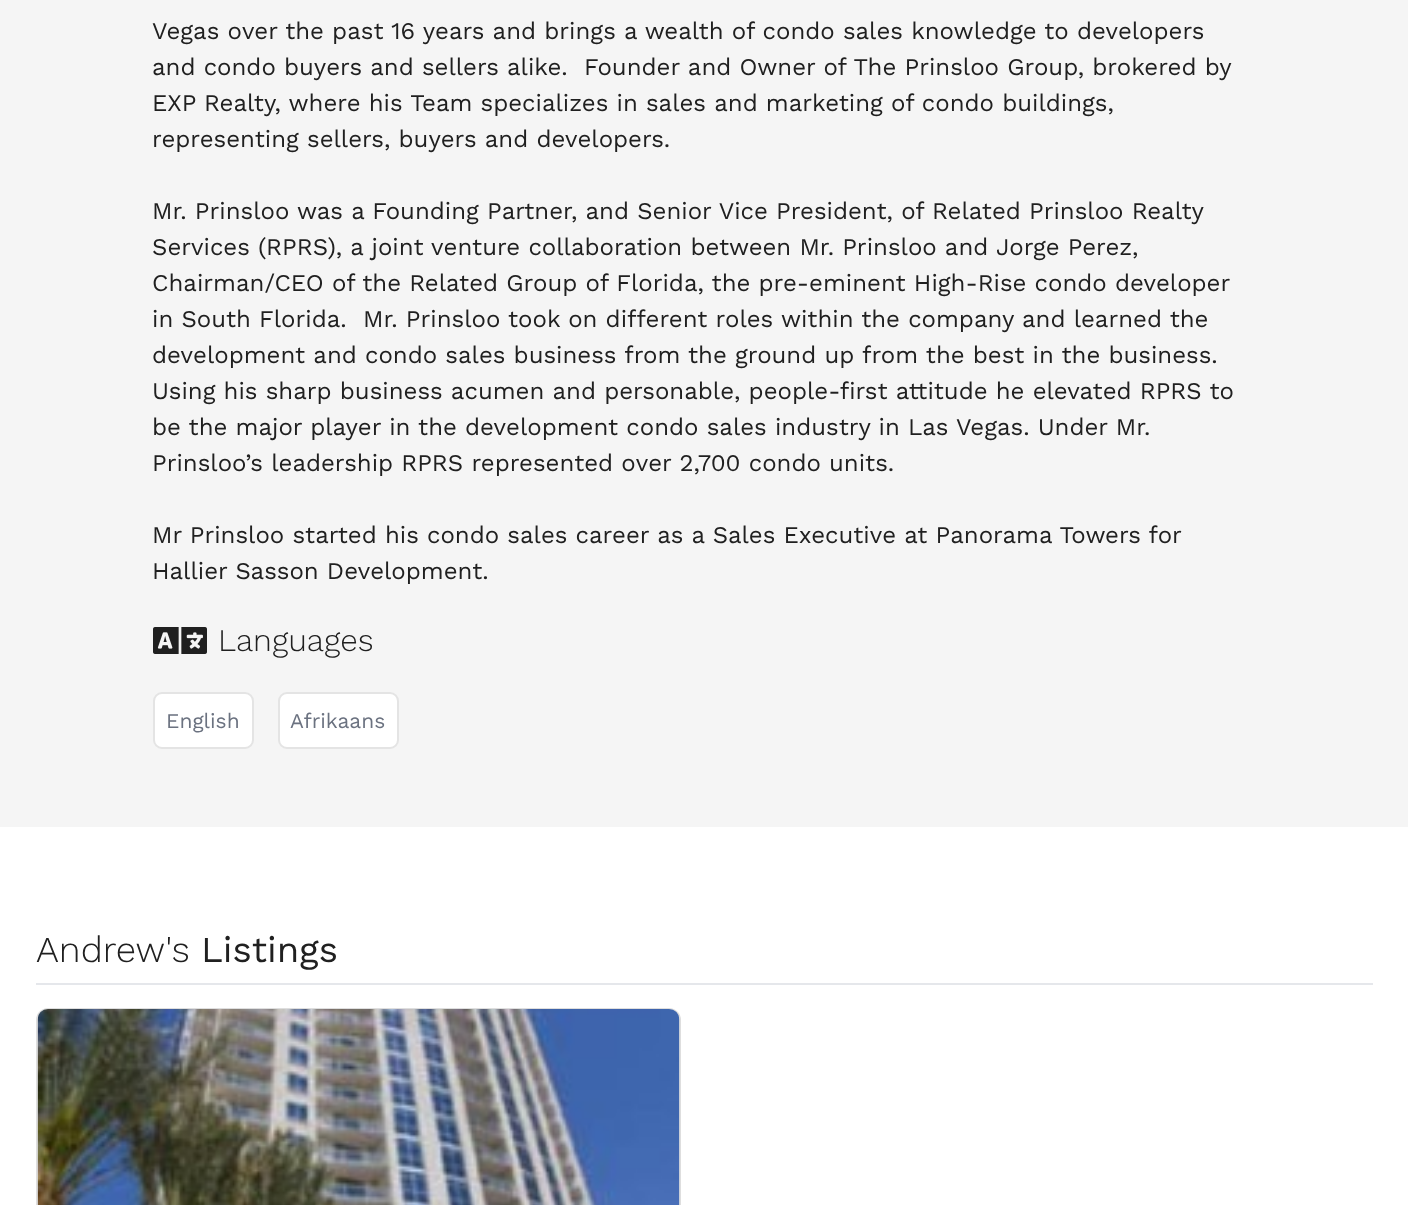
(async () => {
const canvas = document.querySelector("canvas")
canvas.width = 1408
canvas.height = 1205
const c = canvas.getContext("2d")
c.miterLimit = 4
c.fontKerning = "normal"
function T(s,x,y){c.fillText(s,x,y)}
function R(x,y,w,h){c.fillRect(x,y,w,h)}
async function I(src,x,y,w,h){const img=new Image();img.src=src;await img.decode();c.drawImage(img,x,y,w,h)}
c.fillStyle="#fff"
R(0,0,1408,1205)
c.fillStyle="#f5f5f5"
R(0,0,1408,827)
c.font="24px Work Sans"
c.fillStyle="#202020"
T("Vegas over the past 16 years and brings a wealth of condo sales knowledge to developers",152,39)
T("and condo buyers and sellers alike.  Founder and Owner of The Prinsloo Group, brokered by",152,75)
T("EXP Realty, where his Team specializes in sales and marketing of condo buildings,",152,111)
T("representing sellers, buyers and developers.",152,147)
T("Mr. Prinsloo was a Founding Partner, and Senior Vice President, of Related Prinsloo Realty",152,219)
T("Services (RPRS), a joint venture collaboration between Mr. Prinsloo and Jorge Perez,",152,255)
T("Chairman/CEO of the Related Group of Florida, the pre-eminent High-Rise condo developer",152,291)
T("in South Florida.  Mr. Prinsloo took on different roles within the company and learned the",152,327)
T("development and condo sales business from the ground up from the best in the business.",152,363)
T("Using his sharp business acumen and personable, people-first attitude he elevated RPRS to",152,399)
T("be the major player in the development condo sales industry in Las Vegas. Under Mr.",152,435)
T("Prinsloo’s leadership RPRS represented over 2,700 condo units.",152,471)
T("Mr Prinsloo started his condo sales career as a Sales Executive at Panorama Towers for",152,543)
T("Hallier Sasson Development.",152,579)
await I("1.png",153,627,54,27)
c.font="300 31.5px Work Sans"
T("Languages",218,651)
c.fillStyle="#fff"
c.beginPath()
c.roundRect(154,693,99,55,8)
c.fill()
c.strokeStyle="#e4e4e4"
c.lineWidth=2
c.stroke()
c.font="21px Work Sans"
c.fillStyle="#6b7280"
T("English",166,728)
c.fillStyle="#fff"
c.beginPath()
c.roundRect(279,693,119,55,8)
c.fill()
c.stroke()
c.fillStyle="#6b7280"
T("Afrikaans",290,728)
c.font="300 36.5px Work Sans"
c.fillStyle="#202020"
T("Andrew's",36,962)
c.font="36.5px Work Sans"
T("Listings",201,962)
c.fillStyle="#e5e7eb"
R(36,983,1337,2)
c.beginPath()
c.roundRect(37,1009,643,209,11)
c.strokeStyle="#dedede"
c.stroke()
await I("2.png",37,1009,643,196)
})()
